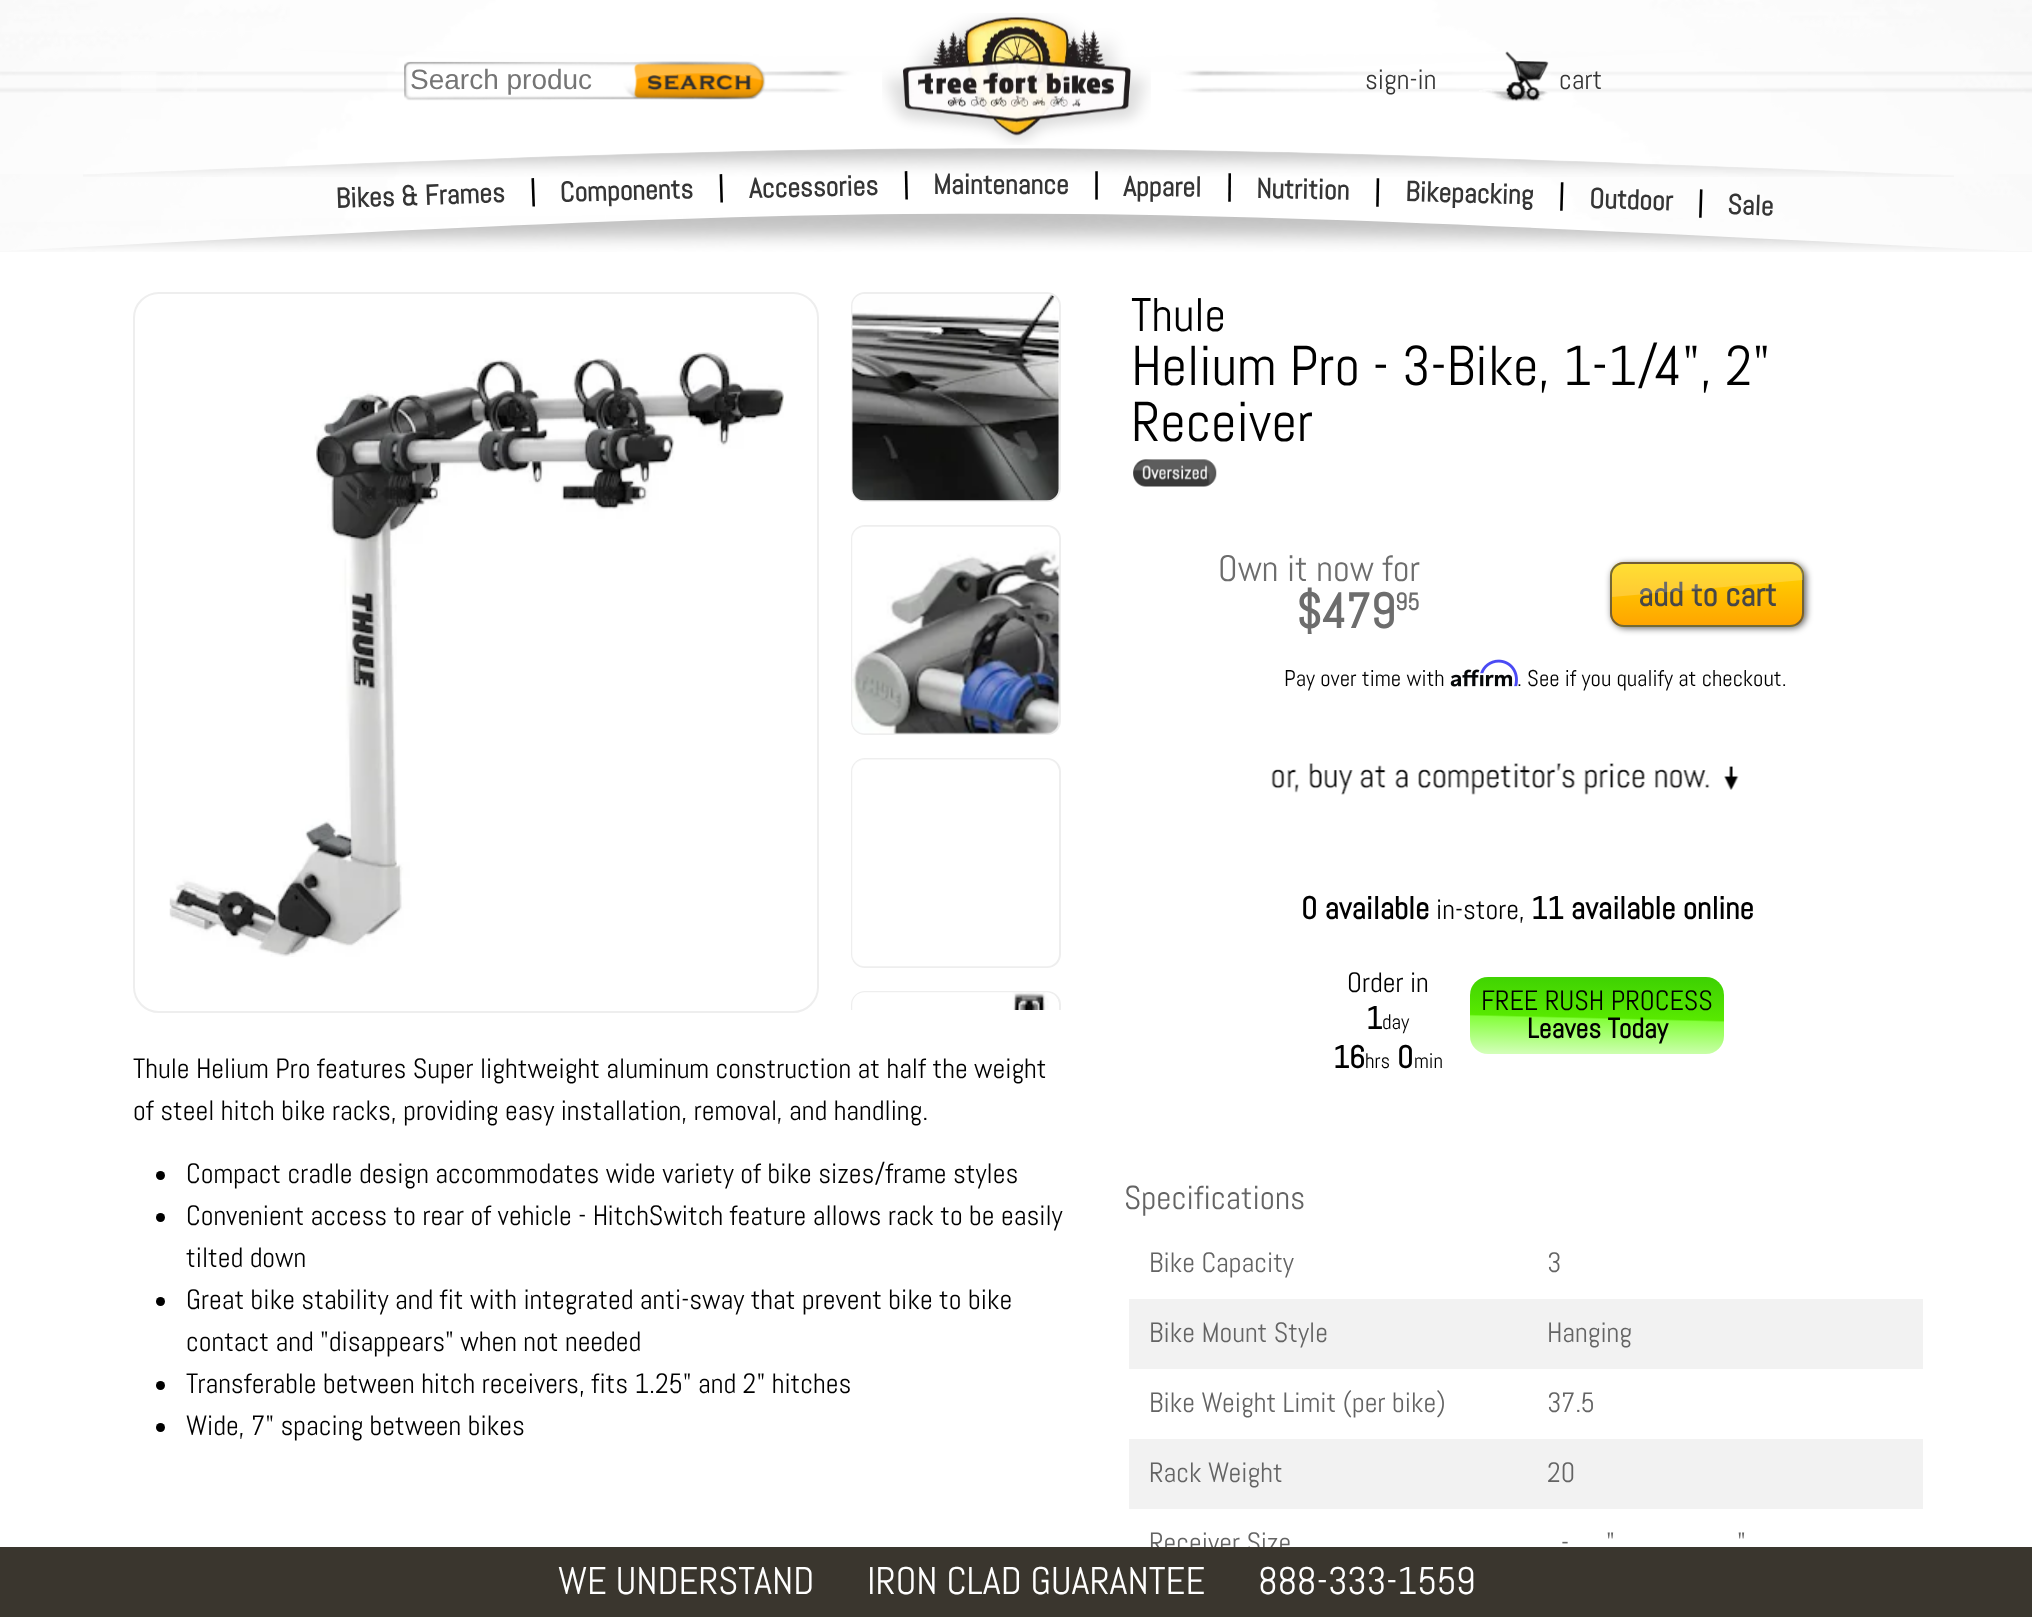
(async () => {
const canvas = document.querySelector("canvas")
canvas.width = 2032
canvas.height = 1617
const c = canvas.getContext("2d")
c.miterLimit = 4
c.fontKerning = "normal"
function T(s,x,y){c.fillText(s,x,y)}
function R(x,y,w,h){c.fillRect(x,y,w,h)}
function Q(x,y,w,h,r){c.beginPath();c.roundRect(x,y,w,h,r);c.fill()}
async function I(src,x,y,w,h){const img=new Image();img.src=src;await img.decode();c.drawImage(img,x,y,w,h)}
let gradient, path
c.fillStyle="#fff"
R(0,0,2032,1617)
await I("10.png",0,38,2032,35)
await I("11.png",0,213,2032,39)
await I("9.png",0,35,2032,216)
c.font="bold 28px Abel"
c.fillStyle="#000"
c.save()
c.translate(718,197)
c.rotate(-1.6 * Math.PI / 180)
c.fillText("|",0,0)
c.restore()
c.fillStyle="#353535"
c.save()
c.translate(749,198)
c.rotate(-1.3 * Math.PI / 180)
c.fillText("Accessories",0,0)
c.restore()
c.fillStyle="#000"
c.save()
c.translate(903,194)
c.rotate(-1.3 * Math.PI / 180)
c.fillText("|",0,0)
c.restore()
c.fillStyle="#353535"
T("Maintenance",933,194)
c.fillStyle="#000"
T("|",1093,194)
c.fillStyle="#353535"
c.save()
c.translate(1123,196)
c.rotate(0.5 * Math.PI / 180)
c.fillText("Apparel",0,0)
c.restore()
c.fillStyle="#000"
c.save()
c.translate(1226,196)
c.rotate(0.5 * Math.PI / 180)
c.fillText("|",0,0)
c.restore()
await I("8.png",83,148,1871,29)
await I("1.png",0,0,2032,174)
await I("6.png",0,70,2032,23)
await I("2.png",882,13,269,132)
await I("3.png",404,61,362,40)
c.font="28px Liberation Sans"
c.fillStyle="#757575"
T("Search produc",410,89)
await I("4.png",903,17,228,119)
c.font="28px Abel"
c.fillStyle="#353535"
T("sign-in",1365,89)
await I("5.png",1479,51,70,51)
T("cart",1559,89)
await I("7.png",121,72,76,20)
c.font="bold 28px Abel"
c.save()
c.translate(336,208)
c.rotate(-2 * Math.PI / 180)
c.fillText("Bikes & Frames",0,0)
c.restore()
c.fillStyle="#000"
c.save()
c.translate(530,201)
c.rotate(-2 * Math.PI / 180)
c.fillText("|",0,0)
c.restore()
c.fillStyle="#353535"
c.save()
c.translate(560,202)
c.rotate(-1.6 * Math.PI / 180)
c.fillText("Components",0,0)
c.restore()
c.save()
c.translate(1256,198)
c.rotate(1 * Math.PI / 180)
c.fillText("Nutrition",0,0)
c.restore()
c.fillStyle="#000"
c.save()
c.translate(1374,201)
c.rotate(1 * Math.PI / 180)
c.fillText("|",0,0)
c.restore()
c.fillStyle="#353535"
c.save()
c.translate(1405,201)
c.rotate(1.6 * Math.PI / 180)
c.fillText("Bikepacking",0,0)
c.restore()
c.fillStyle="#000"
c.save()
c.translate(1558,205)
c.rotate(1.6 * Math.PI / 180)
c.fillText("|",0,0)
c.restore()
c.fillStyle="#353535"
c.save()
c.translate(1589,208)
c.rotate(1.8 * Math.PI / 180)
c.fillText("Outdoor",0,0)
c.restore()
c.fillStyle="#000"
c.save()
c.translate(1697,212)
c.rotate(1.8 * Math.PI / 180)
c.fillText("|",0,0)
c.restore()
c.fillStyle="#353535"
c.save()
c.translate(1727,214)
c.rotate(2 * Math.PI / 180)
c.fillText("Sale",0,0)
c.restore()
c.beginPath()
c.roundRect(134,293,684,719,25)
c.strokeStyle="#eee"
c.lineWidth=2
c.stroke()
await I("12.png",169,352,615,605)
c.beginPath()
c.roundRect(852,293,208,208,13)
c.stroke()
await I("13.png",852,294,207,207)
c.beginPath()
c.roundRect(852,526,208,208,13)
c.stroke()
await I("14.png",852,526,208,208)
c.beginPath()
c.roundRect(852,759,208,208,13)
c.stroke()
await I("15.png",852,759,205,208)
c.save()
c.beginPath()
c.rect(851,292,232,718)
c.clip()
c.beginPath()
c.roundRect(852,992,208,208,13)
c.stroke()
c.restore()
await I("16.png",852,992,206,18)
c.font="47px Abel"
c.fillStyle="#000"
T("Thule",1131,331)
c.font="56px Abel"
T("Helium Pro - 3-Bike, 1-1/4\", 2\"",1131,385)
T("Receiver",1131,441)
await I("17.png",1133,459,84,28)
c.font="36.75px Abel"
c.fillStyle="#6d6d6d"
T("Own it now for",1218,581)
c.font="bold 49px Abel"
T("$479",1296,628)
c.font="bold 24px Abel"
T("95",1395,610)
c.fillStyle="#000000a3"
c.filter="blur(3.5px)"
c.beginPath()
c.roundRect(1612,564,194,64,14)
c.fill()
c.filter="none"
c.save()
c.beginPath()
c.roundRect(1610,562,194,65,14)
c.clip()
gradient = c.createLinearGradient(1707,502,1707,564)
gradient.addColorStop(0,"#ffd700")
gradient.addColorStop(1,"#ffa500")
c.fillStyle = gradient
R(1610,562,194,2)
gradient = c.createLinearGradient(1707,564,1707,625)
gradient.addColorStop(0,"#ffd700")
gradient.addColorStop(1,"#ffa500")
c.fillStyle = gradient
R(1610,564,194,61)
gradient = c.createLinearGradient(1707,625,1707,686)
gradient.addColorStop(0,"#ffd700")
gradient.addColorStop(1,"#ffa500")
c.fillStyle = gradient
R(1610,625,194,2)
c.restore()
c.beginPath()
c.roundRect(1611,563,192,63,13)
c.strokeStyle="#454545bf"
c.stroke()
c.font="bold 33.25px Abel"
c.fillStyle="#474747"
T("add to cart",1638,606)
c.fillStyle="#ffffff33"
path = new Path2D("M1624 564h167c7 0 12 5 12 12v4l-191 17v-21c0-7 5-12 12-12z")
c.fill(path)
c.font="22.75px Abel"
c.fillStyle="#000"
T("Pay over time with",1284,686)
await I("19.png",1450,669,63,18)
await I("18.png",1480,659,38,28)
T(". See if you qualify at checkout.",1517,686)
await I("20.png",1271,763,468,32)
c.font="bold 31.5px Abel"
T("0 available",1301,919)
c.font="28px Abel"
T("in-store,",1436,919)
c.font="bold 31.5px Abel"
T("11 available online",1531,919)
c.font="28px Abel"
T("Order in",1347,992)
c.font="bold 31.5px Abel"
T("1",1366,1029)
c.font="21px Abel"
T("day",1382,1029)
c.font="bold 31.5px Abel"
T("16",1333,1068)
c.font="21px Abel"
T("hrs",1365,1068)
c.font="bold 31.5px Abel"
T("0",1397,1068)
c.font="21px Abel"
T("min",1414,1068)
gradient = c.createLinearGradient(1596,1056,1598,974)
gradient.addColorStop(0,"#d3ffb9")
gradient.addColorStop(.45,"#85ff3c")
gradient.addColorStop(.47,"#58e900")
gradient.addColorStop(1,"#3dd002")
c.fillStyle = gradient
Q(1470,977,254,77,18)
c.font="28px Abel"
c.fillStyle="#000"
T("FREE RUSH PROCESS",1481,1010)
c.font="bold 28px Abel"
T("Leaves Today",1527,1038)
c.font="28px Abel"
T("Thule Helium Pro features Super lightweight aluminum construction at half the weight",133,1078)
T("of steel hitch bike racks, providing easy installation, removal, and handling.",133,1120)
c.beginPath()
c.arc(160.5,1175.5,4.5,0,7)
c.fill()
T("Compact cradle design accommodates wide variety of bike sizes/frame styles",186,1183)
c.beginPath()
c.arc(160.5,1217.5,4.5,0,7)
c.fill()
T("Convenient access to rear of vehicle - HitchSwitch feature allows rack to be easily",186,1225)
T("tilted down",186,1267)
c.beginPath()
c.arc(160.5,1301.5,4.5,0,7)
c.fill()
T("Great bike stability and fit with integrated anti-sway that prevent bike to bike",186,1309)
T("contact and \"disappears\" when not needed",186,1351)
c.beginPath()
c.arc(160.5,1385.5,4.5,0,7)
c.fill()
T("Transferable between hitch receivers, fits 1.25\" and 2\" hitches",186,1393)
c.beginPath()
c.arc(160.5,1427.5,4.5,0,7)
c.fill()
T("Wide, 7\" spacing between bikes",186,1435)
c.font="33.25px Abel"
c.fillStyle="#646464"
T("Specifications",1124,1209)
c.font="28px Abel"
T("Bike Capacity",1149,1272)
T("3",1547,1272)
c.fillStyle="#f2f2f2"
R(1129,1299,794,70)
c.fillStyle="#646464"
T("Bike Mount Style",1149,1342)
T("Hanging",1547,1342)
T("Bike Weight Limit (per bike)",1149,1412)
T("37.5",1547,1412)
c.fillStyle="#f2f2f2"
R(1129,1439,794,70)
c.fillStyle="#646464"
T("Rack Weight",1149,1482)
T("20",1547,1482)
T("Receiver Size",1149,1552)
T("\"",1606,1552)
T("\"",1737,1552)
T("-",1561,1552)
c.fillStyle="#3a362e"
R(0,1547,2032,70)
c.font="38.5px Abel"
c.fillStyle="#fff"
T("WE UNDERSTAND",558,1594)
T("IRON CLAD GUARANTEE",867,1594)
T("888-333-1559",1258,1594)
})()
